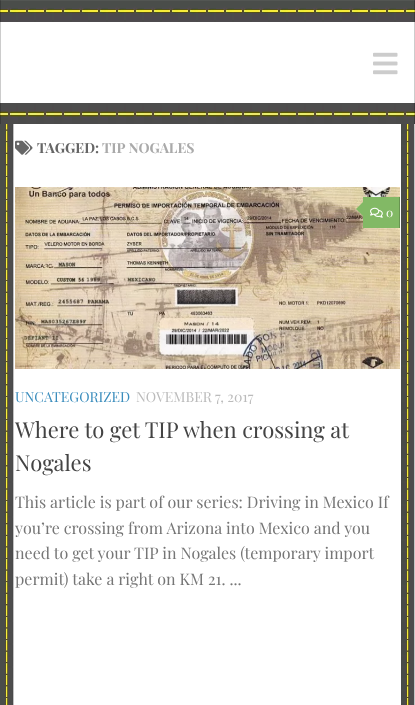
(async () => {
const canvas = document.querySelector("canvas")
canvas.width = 415
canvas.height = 705
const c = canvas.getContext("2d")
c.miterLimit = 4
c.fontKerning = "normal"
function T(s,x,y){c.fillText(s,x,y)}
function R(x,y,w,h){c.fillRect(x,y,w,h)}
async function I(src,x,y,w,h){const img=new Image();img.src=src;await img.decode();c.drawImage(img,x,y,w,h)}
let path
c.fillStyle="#fff"
R(0,0,415,705)
await I("1.png",0,0,415,124)
c.fillStyle="#00000033"
R(414,0,1,124)
R(0,0,1,124)
c.fillStyle="#ffffff0d"
R(0,0,415,1)
await I("2.png",373,52,25,23)
await I("3.png",0,124,415,581)
await I("4.png",15,140,18,15)
c.font="bold 14px Playfair Display"
c.fillStyle="#666"
T("TAGGED:",37,153)
c.fillStyle="#aaa"
T("TIP NOGALES",102,153)
await I("5.png",15,187,385,182)
c.fillStyle="#82b965"
R(363,197,36,31)
c.fillStyle="#689451"
R(399,197,1,31)
c.fillStyle="#82b965"
path = new Path2D("M365 200v18l-9-9z")
c.fill(path)
await I("6.png",370,207,13,11)
c.font="12px Playfair Display"
c.fillStyle="#fff"
T("0",386,217)
c.font="14px Playfair Display"
c.fillStyle="#3b8dbd"
T("UNCATEGORIZED",15,402)
c.fillStyle="#bbb"
T("NOVEMBER 7, 2017",136,402)
c.font="22px Playfair Display"
c.fillStyle="#444"
T("Where to get TIP when crossing at",15,438)
T("Nogales",15,471)
c.font="16px Playfair Display"
c.fillStyle="#767676"
T("This article is part of our series: Driving in Mexico If",15,508)
T("you’re crossing from Arizona into Mexico and you",15,534)
T("need to get your TIP in Nogales (temporary import",15,559)
T("permit) take a right on KM 21. ...",15,585)
})()
